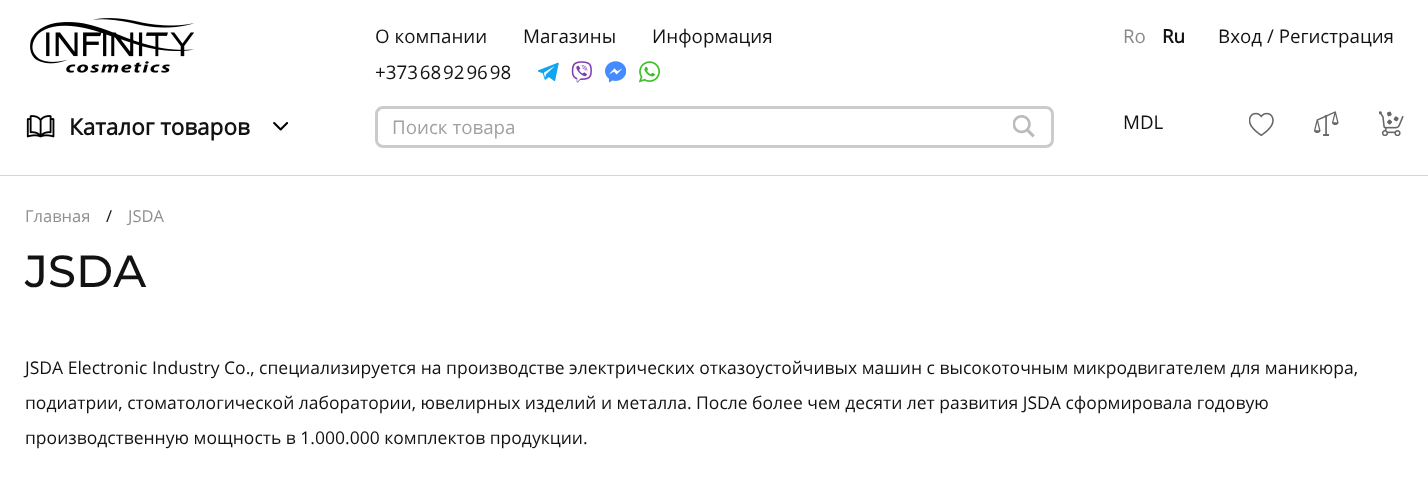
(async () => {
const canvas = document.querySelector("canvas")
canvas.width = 1428
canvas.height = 498
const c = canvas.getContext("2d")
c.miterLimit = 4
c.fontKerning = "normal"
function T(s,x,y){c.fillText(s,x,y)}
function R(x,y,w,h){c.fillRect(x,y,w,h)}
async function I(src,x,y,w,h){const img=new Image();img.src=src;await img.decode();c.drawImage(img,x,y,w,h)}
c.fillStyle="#fff"
R(0,0,1428,498)
c.fillStyle="#d5d5d5"
R(0,175,1428,1)
await I("1.png",30,18,164,55)
c.font="18.75px Open Sans"
c.fillStyle="#121212"
T("О компании",375,43)
T("Магазины",523,43)
T("Информация",652,43)
c.wordSpacing="-3px"
T("+373 68 92 96 98",375,79)
await I("2.png",538,62,21,20)
await I("3.png",571,61,21,22)
await I("4.png",605,61,21,22)
await I("5.png",639,61,21,22)
c.wordSpacing="0px"
c.fillStyle="#898989"
T("Ro",1123,43)
c.font="bold 18.75px Open Sans"
c.fillStyle="#121212"
T("Ru",1162,43)
c.font="18.75px Open Sans"
T("Вход / Регистрация",1218,43)
await I("6.png",26,115,29,23)
c.font="bold 22.5px Open Sans"
T("Каталог товаров",69,135)
await I("7.png",273,122,16,9)
c.beginPath()
c.roundRect(376.5,107.5,676,39,6.5)
c.strokeStyle="#cbcbcb"
c.lineWidth=3
c.stroke()
c.font="18.75px Open Sans"
c.fillStyle="#a1a1a1"
T("Поиск товара",392,134)
await I("8.png",1013,115,22,23)
c.fillStyle="#121212"
T("MDL",1123,129)
await I("9.png",1249,112,25,24)
await I("10.png",1314,111,25,25)
await I("11.png",1379,111,25,25)
c.font="16.5px Open Sans"
c.fillStyle="#909090"
T("Главная",25,222)
c.fillStyle="#121212"
T("/",106,222)
c.fillStyle="#909090"
T("JSDA",128,222)
c.font="500 45px Montserrat"
c.fillStyle="#121212"
T("JSDA",25,287)
c.font="17.5px Open Sans"
T("JSDA Electronic Industry Co., специализируется на производстве электрических отказоустойчивых машин с высокоточным микродвигателем для маникюра,",25,374)
T("подиатрии, стоматологической лаборатории, ювелирных изделий и металла. После более чем десяти лет развития JSDA сформировала годовую",25,409)
T("производственную мощность в 1.000.000 комплектов продукции.",25,444)
})()
